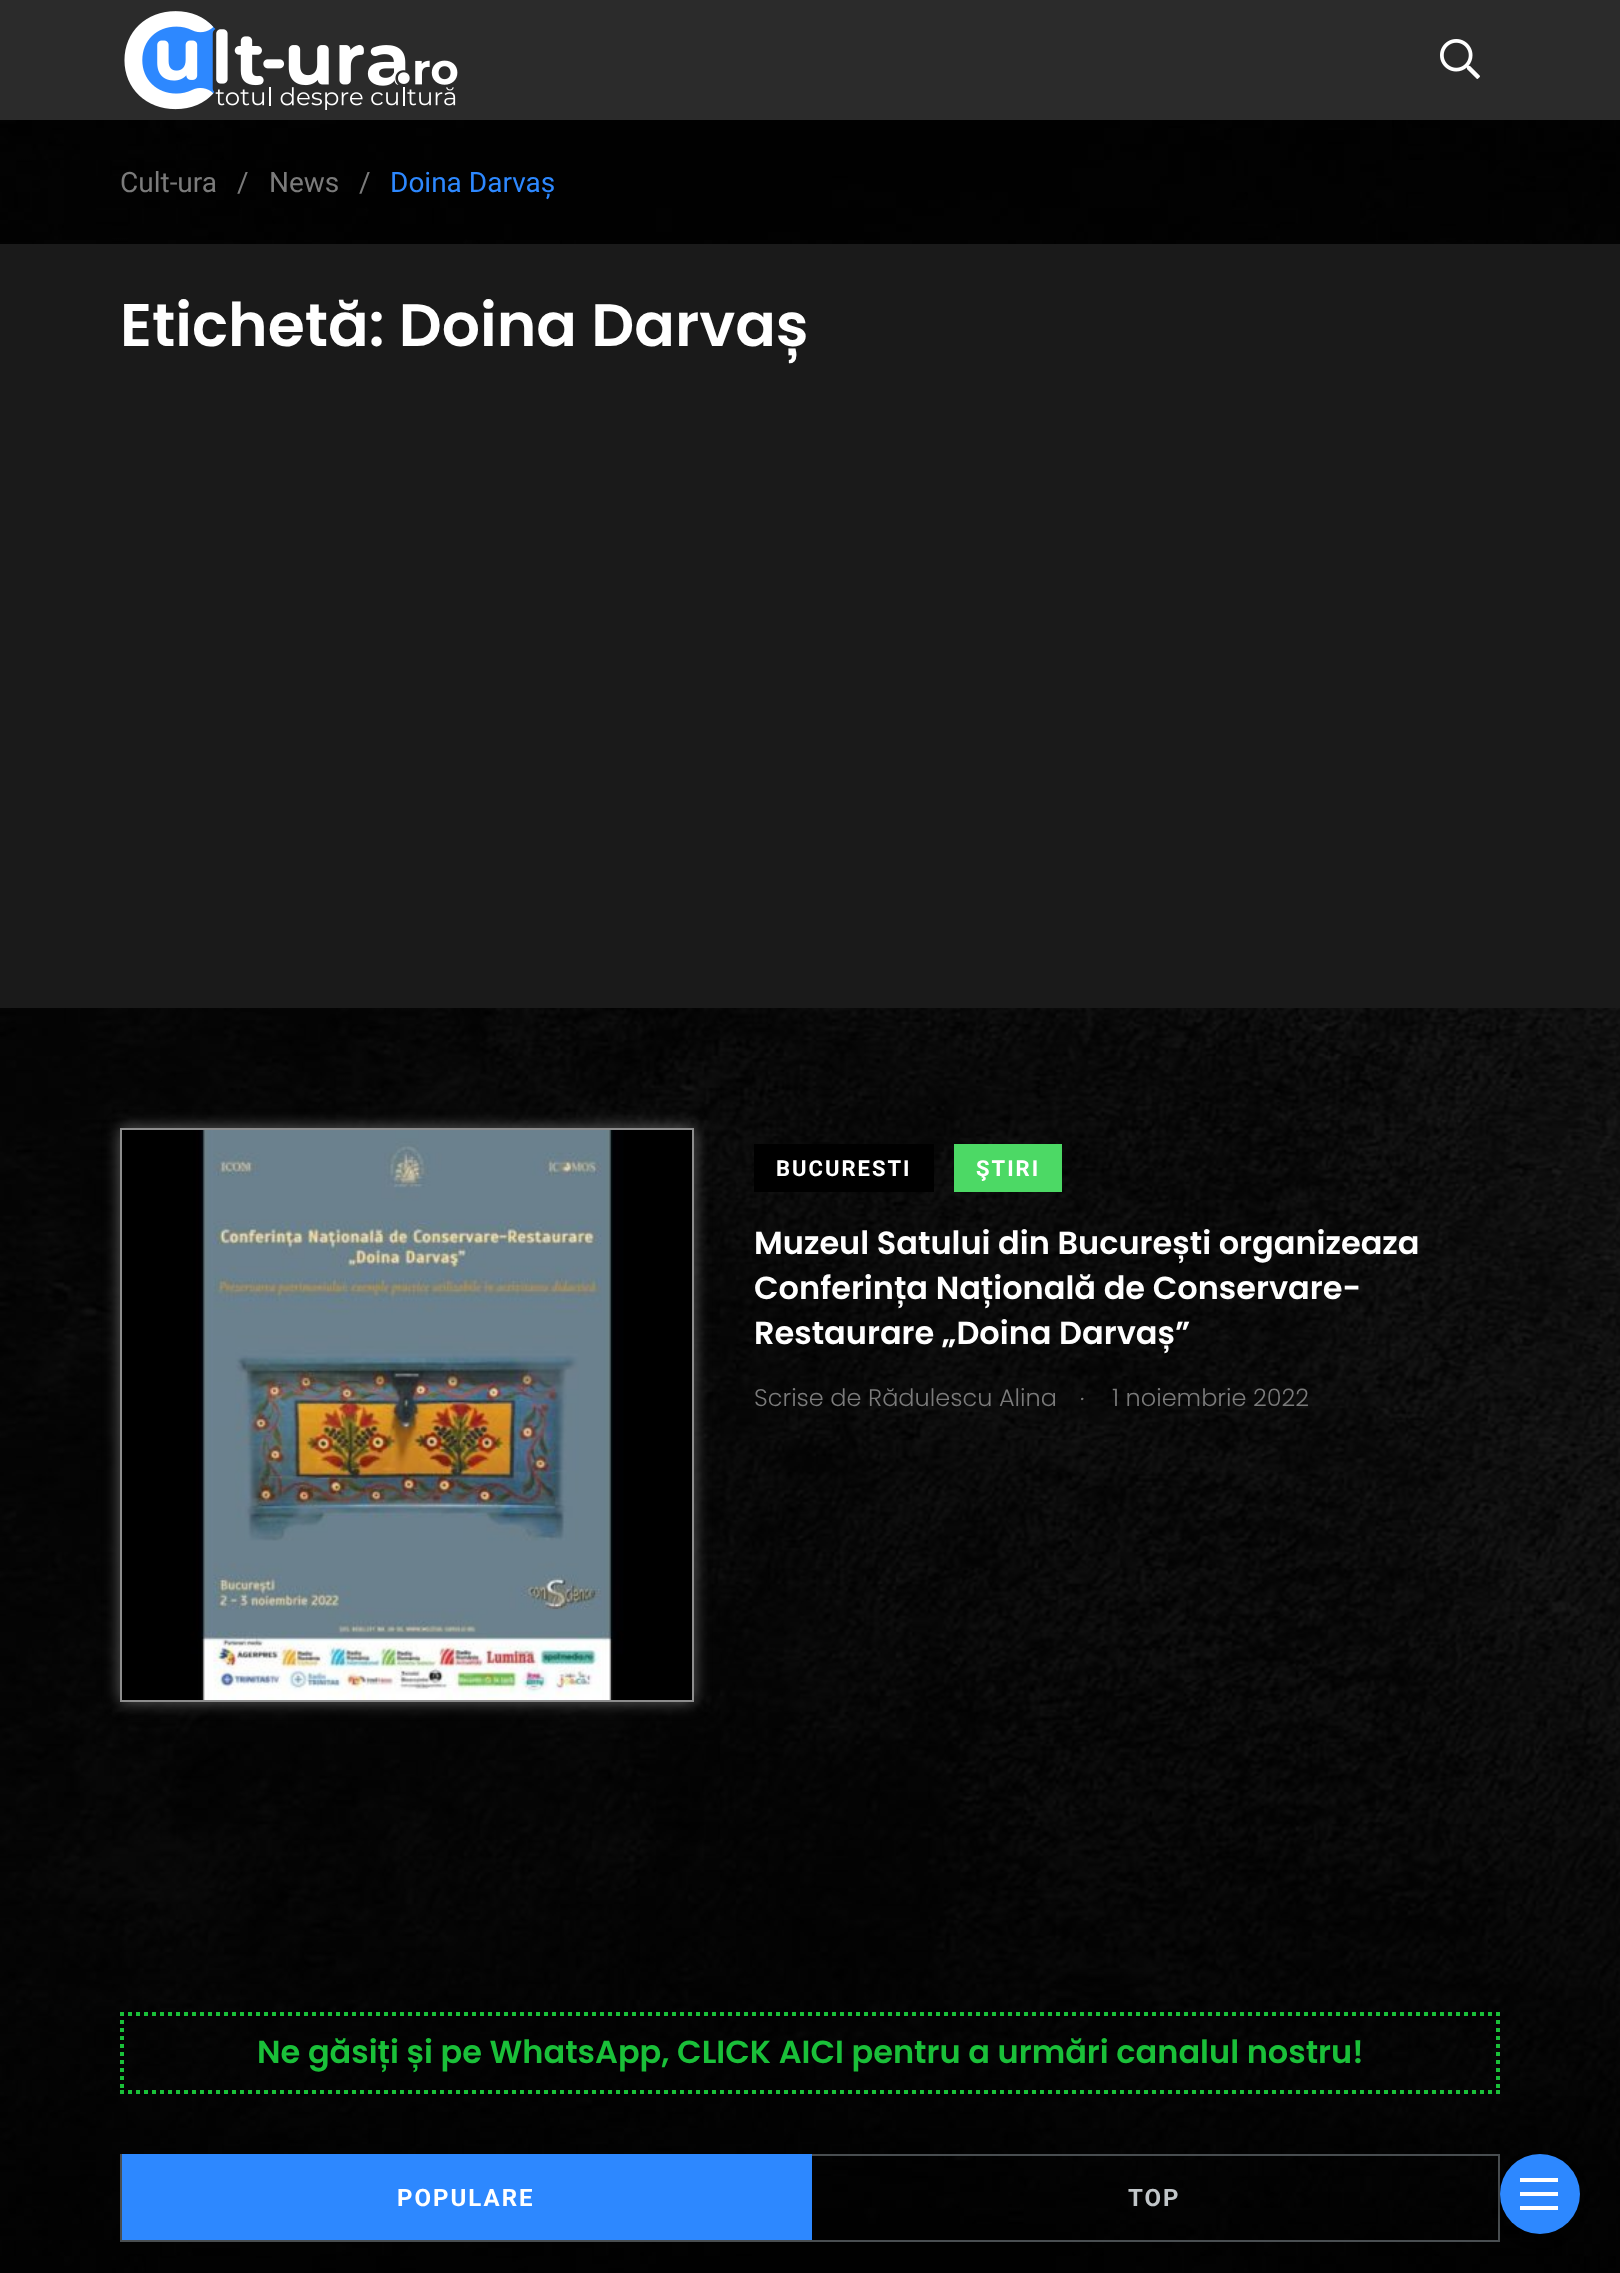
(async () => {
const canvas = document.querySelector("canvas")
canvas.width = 1620
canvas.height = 2273
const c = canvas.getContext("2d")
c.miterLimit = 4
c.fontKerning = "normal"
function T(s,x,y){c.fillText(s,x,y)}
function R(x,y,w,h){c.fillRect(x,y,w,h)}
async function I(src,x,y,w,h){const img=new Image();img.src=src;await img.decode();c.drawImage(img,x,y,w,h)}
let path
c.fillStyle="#fff"
R(0,0,1620,2273)
await I("1.png",0,120,1620,2153)
c.fillStyle="#2b2b2b"
R(0,0,1620,120)
await I("2.png",124,11,334,99)
await I("3.png",1440,39,40,40)
c.fillStyle="#494e51"
R(120,2240,1380,2)
R(812,2154,688,2)
R(1498,2154,2,86)
c.fillStyle="#0000004d"
c.filter="blur(5px)"
c.beginPath()
c.roundRect(1500,2160,80,80,40)
c.fill()
c.filter="none"
c.fillStyle="#2d88ff"
c.beginPath()
c.arc(1540,2194,40,0,7)
c.fill()
c.fillStyle="#fff"
R(1520,2178,38,4)
R(1520,2192,38,4)
R(1520,2206,38,4)
c.font="28px Roboto"
c.fillStyle="#7b7b7b"
T("Cult-ura",120,192)
T("/",237,192)
T("News",269,192)
T("/",359,192)
c.fillStyle="#2d88ff"
T("Doina Darvaș",390,192)
c.fillStyle="#1a1a1a"
R(0,244,1620,764)
c.font="600 60px Poppins"
c.fillStyle="#fff"
T("Etichetă: Doina Darvaș",120,346)
c.fillStyle="#616161"
c.filter="blur(8px)"
c.beginPath()
c.rect(120,1128,574,574)
c.fill()
c.filter="none"
c.strokeStyle="#8d8d8d"
c.lineWidth=2
c.strokeRect(121,1129,572,572)
await I("4.png",122,1130,570,570)
c.fillStyle="#000"
R(754,1144,180,48)
c.letterSpacing="2px"
c.font="bold 22px Roboto"
c.fillStyle="#fff"
T("BUCURESTI",776,1176)
c.fillStyle="#4cd965"
R(954,1144,108,48)
c.fillStyle="#fff"
T("ŞTIRI",976,1176)
c.letterSpacing="0px"
c.font="600 32px Poppins"
T("Muzeul Satului din București organizeaza",754,1254)
T("Conferința Națională de Conservare-",754,1299)
T("Restaurare „Doina Darvaș”",754,1344)
c.font="300 24px Poppins"
c.fillStyle="#7b7b7b"
T("Scrise de Rădulescu Alina",754,1406)
c.font="italic 300 24px Poppins"
T(".",1081,1400)
c.font="300 24px Poppins"
T("1 noiembrie 2022",1112,1406)
path = new Path2D("M120 2014h1380")
c.strokeStyle="#1ac039"
c.lineWidth=4
c.setLineDash([4,4])
c.stroke(path)
path = new Path2D("M1498 2012v82")
c.stroke(path)
path = new Path2D("M120 2092h1380")
c.stroke(path)
path = new Path2D("M122 2012v82")
c.stroke(path)
c.font="600 32px Poppins"
c.fillStyle="#1ac039"
T("Ne găsiți și pe WhatsApp, CLICK AICI pentru a urmări canalul nostru!",257,2063)
c.fillStyle="#494e51"
R(120,2154,2,88)
c.fillStyle="#2d88ff"
R(122,2156,688,84)
R(122,2154,690,2)
R(810,2154,2,86)
c.letterSpacing="2px"
c.font="bold 24px Roboto"
c.fillStyle="#fff"
T("POPULARE",397,2206)
c.fillStyle="#c1c6c9"
T("TOP",1128,2206)
})()
